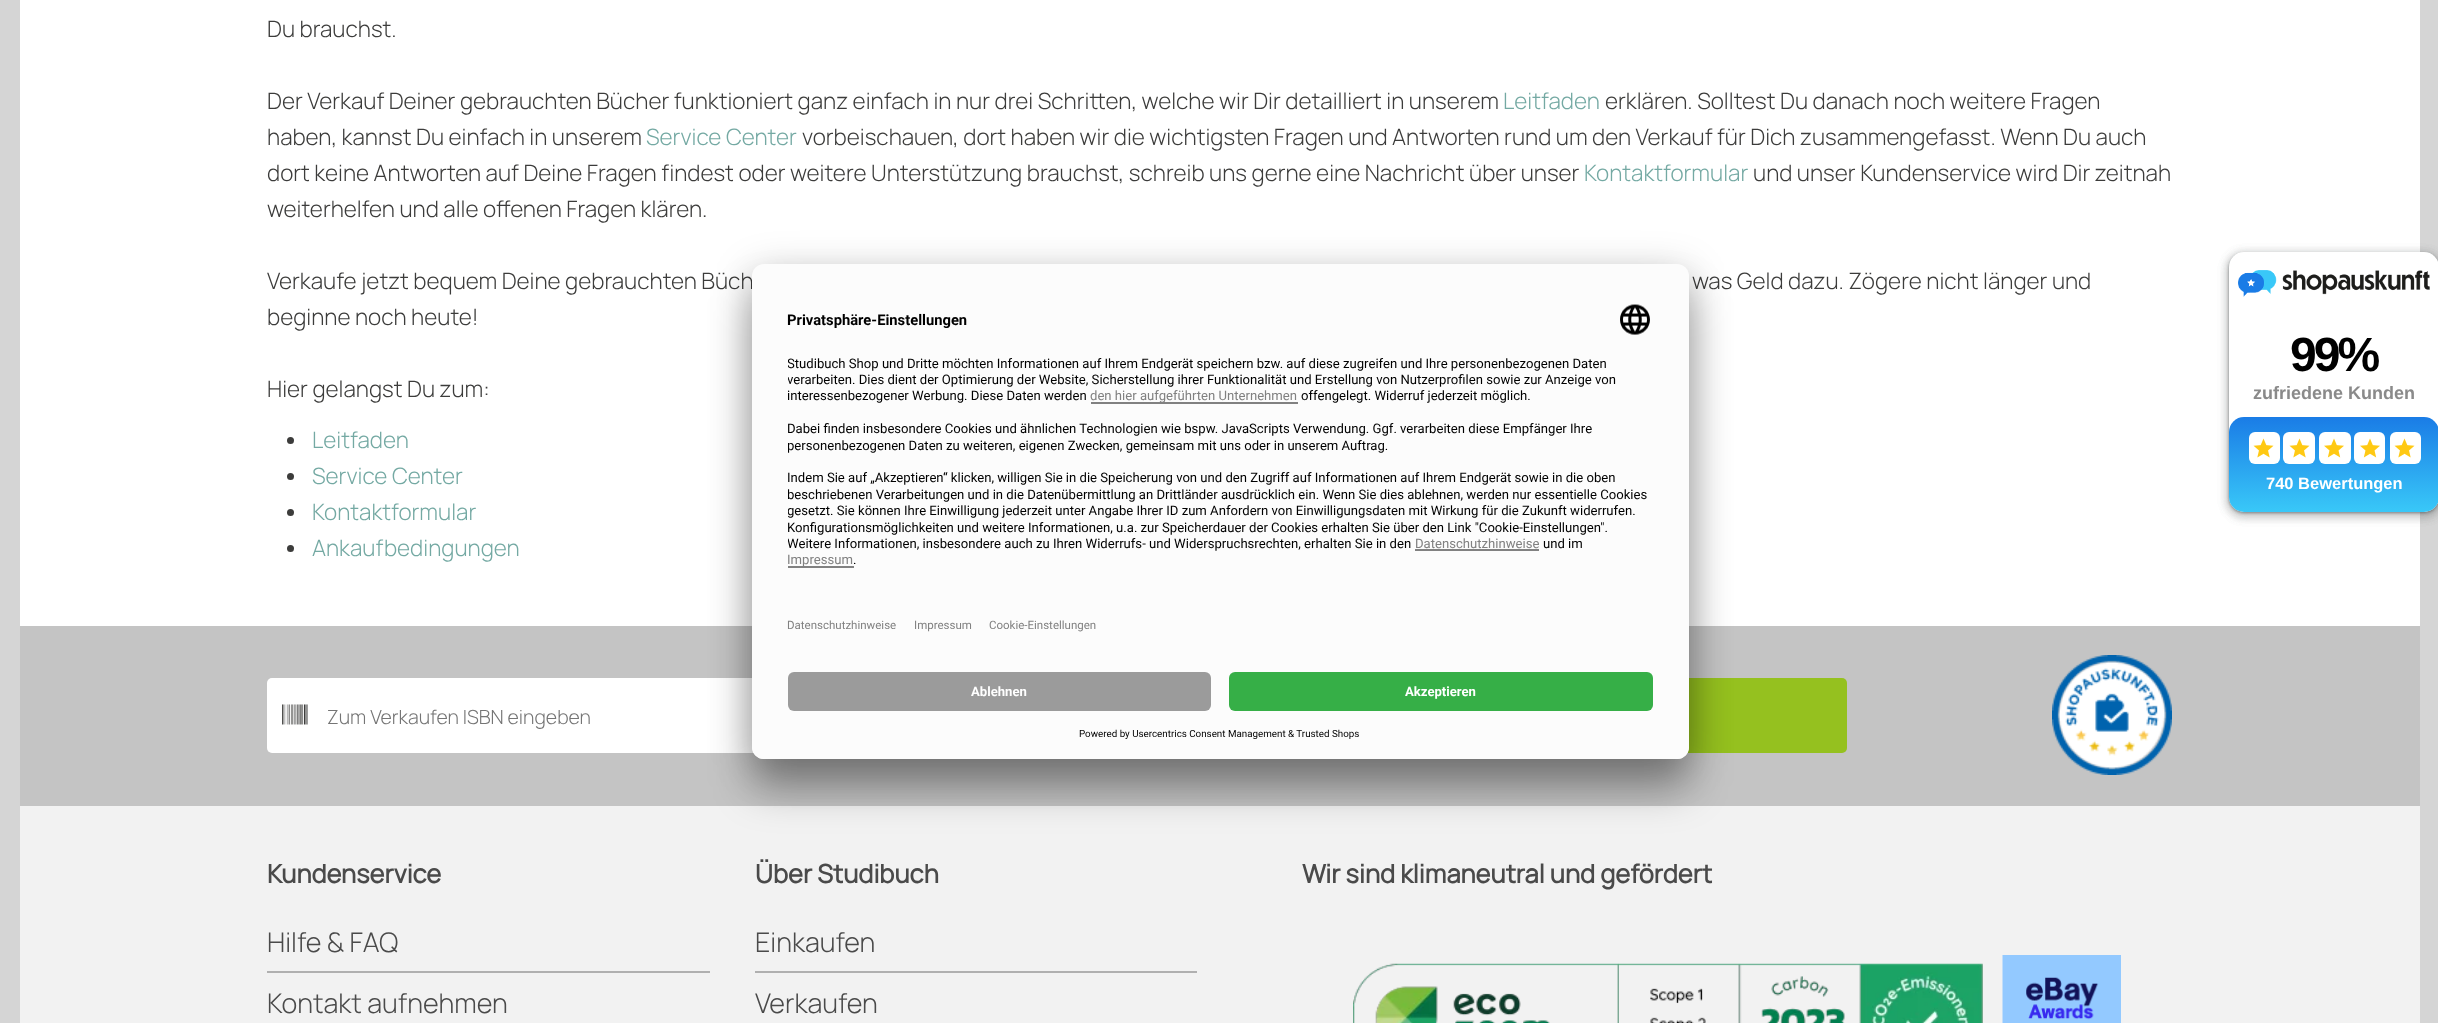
(async () => {
const canvas = document.querySelector("canvas")
canvas.width = 2438
canvas.height = 1023
const c = canvas.getContext("2d")
c.miterLimit = 4
c.fontKerning = "normal"
function T(s,x,y){c.fillText(s,x,y)}
function R(x,y,w,h){c.fillRect(x,y,w,h)}
function Q(x,y,w,h,r){c.beginPath();c.roundRect(x,y,w,h,r);c.fill()}
async function I(src,x,y,w,h){const img=new Image();img.src=src;await img.decode();c.drawImage(img,x,y,w,h)}
let gradient
c.fillStyle="#d5d5d5"
R(0,0,2438,1023)
c.fillStyle="#fff"
R(20,0,2400,626)
c.font="300 22.5px Manrope"
c.fillStyle="#3c3c3b"
T("Du brauchst.",267,37)
T("Der Verkauf Deiner gebrauchten Bücher funktioniert ganz einfach in nur drei Schritten, welche wir Dir detailliert in unserem",267,109)
c.fillStyle="#74a9a3"
T("Leitfaden",1503,109)
c.fillStyle="#3c3c3b"
T("erklären. Solltest Du danach noch weitere Fragen",1605,109)
T("haben, kannst Du einfach in unserem",267,145)
c.fillStyle="#74a9a3"
T("Service Center",646,145)
c.fillStyle="#3c3c3b"
T("vorbeischauen, dort haben wir die wichtigsten Fragen und Antworten rund um den Verkauf für Dich zusammengefasst. Wenn Du auch",802,145)
T("dort keine Antworten auf Deine Fragen findest oder weitere Unterstützung brauchst, schreib uns gerne eine Nachricht über unser",267,181)
c.fillStyle="#74a9a3"
T("Kontaktformular",1584,181)
c.fillStyle="#3c3c3b"
T("und unser Kundenservice wird Dir zeitnah",1753,181)
T("weiterhelfen und alle offenen Fragen klären.",267,217)
T("Verkaufe jetzt bequem Deine gebrauchten Büch",267,289)
T("was Geld dazu. Zögere nicht länger und",1692,289)
T("beginne noch heute!",267,325)
T("Hier gelangst Du zum:",267,397)
c.beginPath()
c.arc(290.5,440.5,3.5,0,7)
c.fill()
c.fillStyle="#74a9a3"
T("Leitfaden",312,448)
c.fillStyle="#3c3c3b"
c.beginPath()
c.arc(290.5,476.5,3.5,0,7)
c.fill()
c.fillStyle="#74a9a3"
T("Service Center",312,484)
c.fillStyle="#3c3c3b"
c.beginPath()
c.arc(290.5,512.5,3.5,0,7)
c.fill()
c.fillStyle="#74a9a3"
T("Kontaktformular",312,520)
c.fillStyle="#3c3c3b"
c.beginPath()
c.arc(290.5,548.5,3.5,0,7)
c.fill()
c.fillStyle="#74a9a3"
T("Ankaufbedingungen",312,556)
c.fillStyle="#3c404326"
c.filter="blur(4.5px)"
c.beginPath()
c.roundRect(2226,252,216,266,18)
c.fill()
c.filter="none"
c.fillStyle="#3c40434d"
c.filter="blur(1.5px)"
c.beginPath()
c.roundRect(2229,254,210,259,15)
c.fill()
c.filter="none"
c.fillStyle="#c4c4c4"
R(20,626,2400,180)
c.fillStyle="#fff"
Q(267,678,930,75,5)
await I("1.png",282,704,26,21)
c.font="300 19.5px Manrope"
c.fillStyle="#757575"
T("Zum Verkaufen ISBN eingeben",327,724)
c.fillStyle="#95c11f"
Q(1242,678,605,75,5)
await I("2.png",2052,655,120,120)
c.fillStyle="#3c404326"
c.filter="blur(4.5px)"
c.beginPath()
c.roundRect(2226,252,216,266,18)
c.fill()
c.filter="none"
c.fillStyle="#3c40434d"
c.filter="blur(1.5px)"
c.beginPath()
c.roundRect(2229,254,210,259,15)
c.fill()
c.filter="none"
c.fillStyle="#fff"
Q(2229,252,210,260,15)
await I("3.png",2238,270,192,27)
c.letterSpacing="-3px"
c.font="bold 48px Liberation Sans"
c.fillStyle="#000"
T("99%",2290,371)
c.letterSpacing="0px"
c.font="bold 18px Liberation Sans"
c.fillStyle="#8a8a8a"
T("zufriedene Kunden",2253,399)
gradient = c.createLinearGradient(2334,417,2334,512)
gradient.addColorStop(0,"#1a7ce6")
gradient.addColorStop(1,"#39c8f8")
c.fillStyle = gradient
Q(2229,417,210,95,15)
c.fillStyle="#fff"
Q(2249,432,31,32,6)
await I("4.png",2253,438,21,20)
Q(2283,432,32,32,6)
await I("4.png",2289,438,21,20)
Q(2319,432,32,32,6)
await I("5.png",2324,438,20,20)
Q(2354,432,31,32,6)
await I("5.png",2360,438,20,20)
Q(2390,432,31,32,6)
await I("4.png",2394,438,21,20)
c.font="bold 16.5px Liberation Sans"
T("740 Bewertungen",2266,489)
c.fillStyle="#f2f2f2"
R(20,806,2400,217)
c.font="bold 25.5px Manrope"
c.fillStyle="#4a4a4a"
T("Kundenservice",267,883)
c.fillStyle="#b0b0b0"
R(267,971,443,2)
c.font="300 27px Manrope"
c.fillStyle="#4a4a4a"
T("Hilfe & FAQ",267,952)
T("Kontakt aufnehmen",267,1013)
c.font="bold 25.5px Manrope"
T("Über Studibuch",755,883)
c.fillStyle="#b0b0b0"
R(755,971,442,2)
c.font="300 27px Manrope"
c.fillStyle="#4a4a4a"
T("Einkaufen",755,952)
T("Verkaufen",755,1013)
c.font="bold 25.5px Manrope"
T("Wir sind klimaneutral und gefördert",1302,883)
await I("6.png",1353,963,630,60)
await I("7.png",2002,955,119,68)
c.fillStyle="#0000004d"
c.filter="blur(21px)"
c.beginPath()
c.roundRect(752,294,937,495,12)
c.fill()
c.filter="none"
c.fillStyle="#00000038"
c.filter="blur(19.5px)"
c.beginPath()
c.roundRect(752,272,937,495,12)
c.fill()
c.filter="none"
c.fillStyle="#fcfcfc"
Q(752,264,937,495,12)
c.font="bold 14.75px Roboto"
c.fillStyle="#000"
T("Privatsphäre-Einstellungen",787,325)
await I("8.png",1620,304,30,31)
c.save()
c.beginPath()
c.rect(788,350,865,225)
c.clip()
c.font="13.12px Roboto"
T("Studibuch Shop und Dritte möchten Informationen auf Ihrem Endgerät speichern bzw. auf diese zugreifen und Ihre personenbezogenen Daten",787,368)
T("verarbeiten. Dies dient der Optimierung der Website, Sicherstellung ihrer Funktionalität und Erstellung von Nutzerprofilen sowie zur Anzeige von",787,384)
T("interessenbezogener Werbung. Diese Daten werden",787,400)
c.restore()
c.fillStyle="#818181"
R(1091,402,207,2)
c.font="13.12px Roboto"
T("den hier aufgeführten Unternehmen",1090,400)
c.fillStyle="#000"
T("offengelegt. Widerruf jederzeit möglich.",1301,400)
c.save()
c.beginPath()
c.rect(788,350,865,225)
c.clip()
T("Dabei finden insbesondere Cookies und ähnlichen Technologien wie bspw. JavaScripts Verwendung. Ggf. verarbeiten diese Empfänger Ihre",787,433)
T("personenbezogenen Daten zu weiteren, eigenen Zwecken, gemeinsam mit uns oder in unserem Auftrag.",787,450)
T("Indem Sie auf „Akzeptieren“ klicken, willigen Sie in die Speicherung von und den Zugriff auf Informationen auf Ihrem Endgerät sowie in die oben",787,482)
T("beschriebenen Verarbeitungen und in die Datenübermittlung an Drittländer ausdrücklich ein. Wenn Sie dies ablehnen, werden nur essentielle Cookies",787,499)
T("gesetzt. Sie können Ihre Einwilligung jederzeit unter Angabe Ihrer ID zum Anfordern von Einwilligungsdaten mit Wirkung für die Zukunft widerrufen.",787,515)
T("Konfigurationsmöglichkeiten und weitere Informationen, u.a. zur Speicherdauer der Cookies erhalten Sie über den Link \"Cookie-Einstellungen\".",787,532)
T("Weitere Informationen, insbesondere auch zu Ihren Widerrufs- und Widerspruchsrechten, erhalten Sie in den",787,548)
c.restore()
c.fillStyle="#818181"
T("Datenschutzhinweise",1415,548)
R(1415,549,124,2)
c.fillStyle="#000"
T("und im",1543,548)
c.fillStyle="#818181"
R(788,566,66,2)
c.save()
c.beginPath()
c.rect(788,350,865,225)
c.clip()
T("Impressum",787,564)
c.restore()
c.fillStyle="#000"
T(".",853,564)
c.font="11.5px Roboto"
c.fillStyle="#818181"
T("Datenschutzhinweise",787,629)
T("Impressum",914,629)
T("Cookie-Einstellungen",989,629)
c.fillStyle="#fcfcfc"
c.beginPath()
c.roundRect(752,660,937,99,[0,0,12,12])
c.fill()
c.fillStyle="#9b9b9b"
Q(788,672,423,39,6)
c.font="bold 13.12px Roboto"
c.fillStyle="#fff"
T("Ablehnen",971,696)
c.fillStyle="#36af47"
Q(1229,672,424,39,6)
c.fillStyle="#fff"
T("Akzeptieren",1405,696)
c.font="9.8px Roboto"
c.fillStyle="#000"
T("Powered by Usercentrics Consent Management",1079,737)
T("& Trusted Shops",1288,737)
})()
